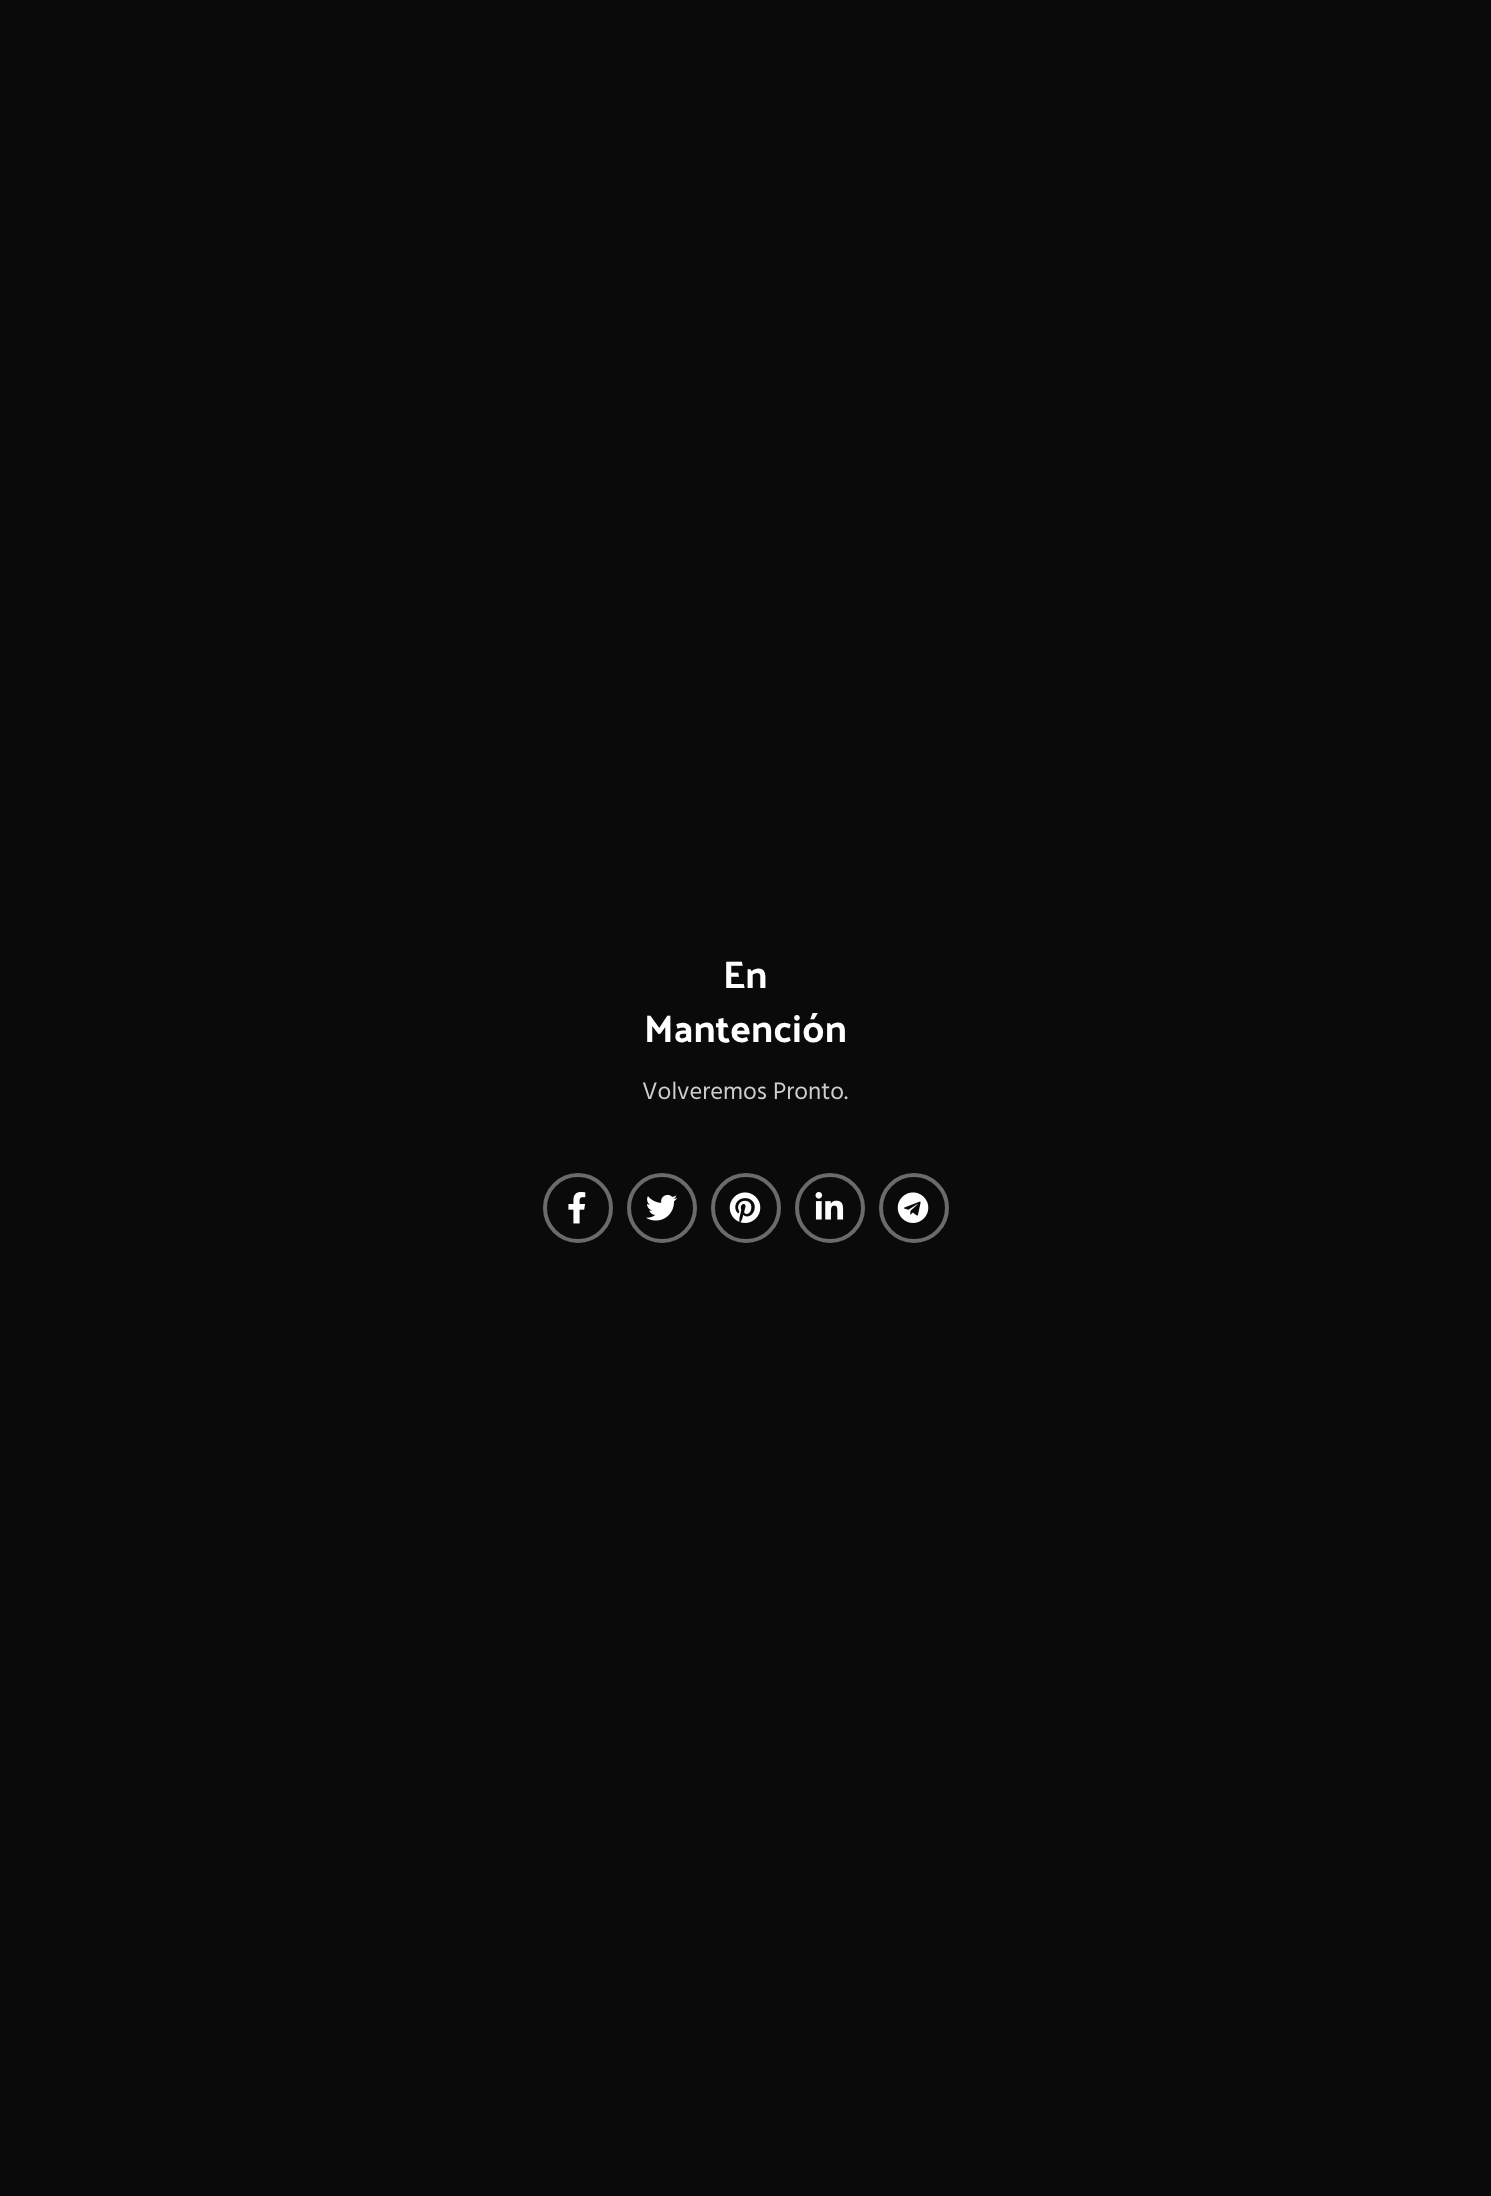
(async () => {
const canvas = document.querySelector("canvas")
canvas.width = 1491
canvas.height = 2196
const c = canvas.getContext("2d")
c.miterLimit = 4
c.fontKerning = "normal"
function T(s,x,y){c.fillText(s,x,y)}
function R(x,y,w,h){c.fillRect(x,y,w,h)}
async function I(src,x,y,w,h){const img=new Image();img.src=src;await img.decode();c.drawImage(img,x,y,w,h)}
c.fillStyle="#0a0a0a"
R(0,0,1491,2196)
c.font="38.5px Palanquin Dark"
c.fillStyle="#fff"
T("En",723,988)
T("Mantención",644,1042)
c.font="24.5px Hind"
c.fillStyle="#cecece"
T("Volveremos Pronto.",642,1099)
c.beginPath()
c.arc(578,1208,33,0,7)
c.strokeStyle="#6b6b6b"
c.lineWidth=4
c.stroke()
await I("1.png",568,1192,18,32)
c.beginPath()
c.arc(662,1208,33,0,7)
c.stroke()
await I("2.png",646,1194,32,27)
c.beginPath()
c.arc(746,1208,33,0,7)
c.stroke()
await I("3.png",729,1192,32,31)
c.beginPath()
c.arc(830,1208,33,0,7)
c.stroke()
await I("4.png",815,1192,29,28)
c.beginPath()
c.arc(914,1208,33,0,7)
c.stroke()
await I("5.png",897,1192,32,31)
})()
